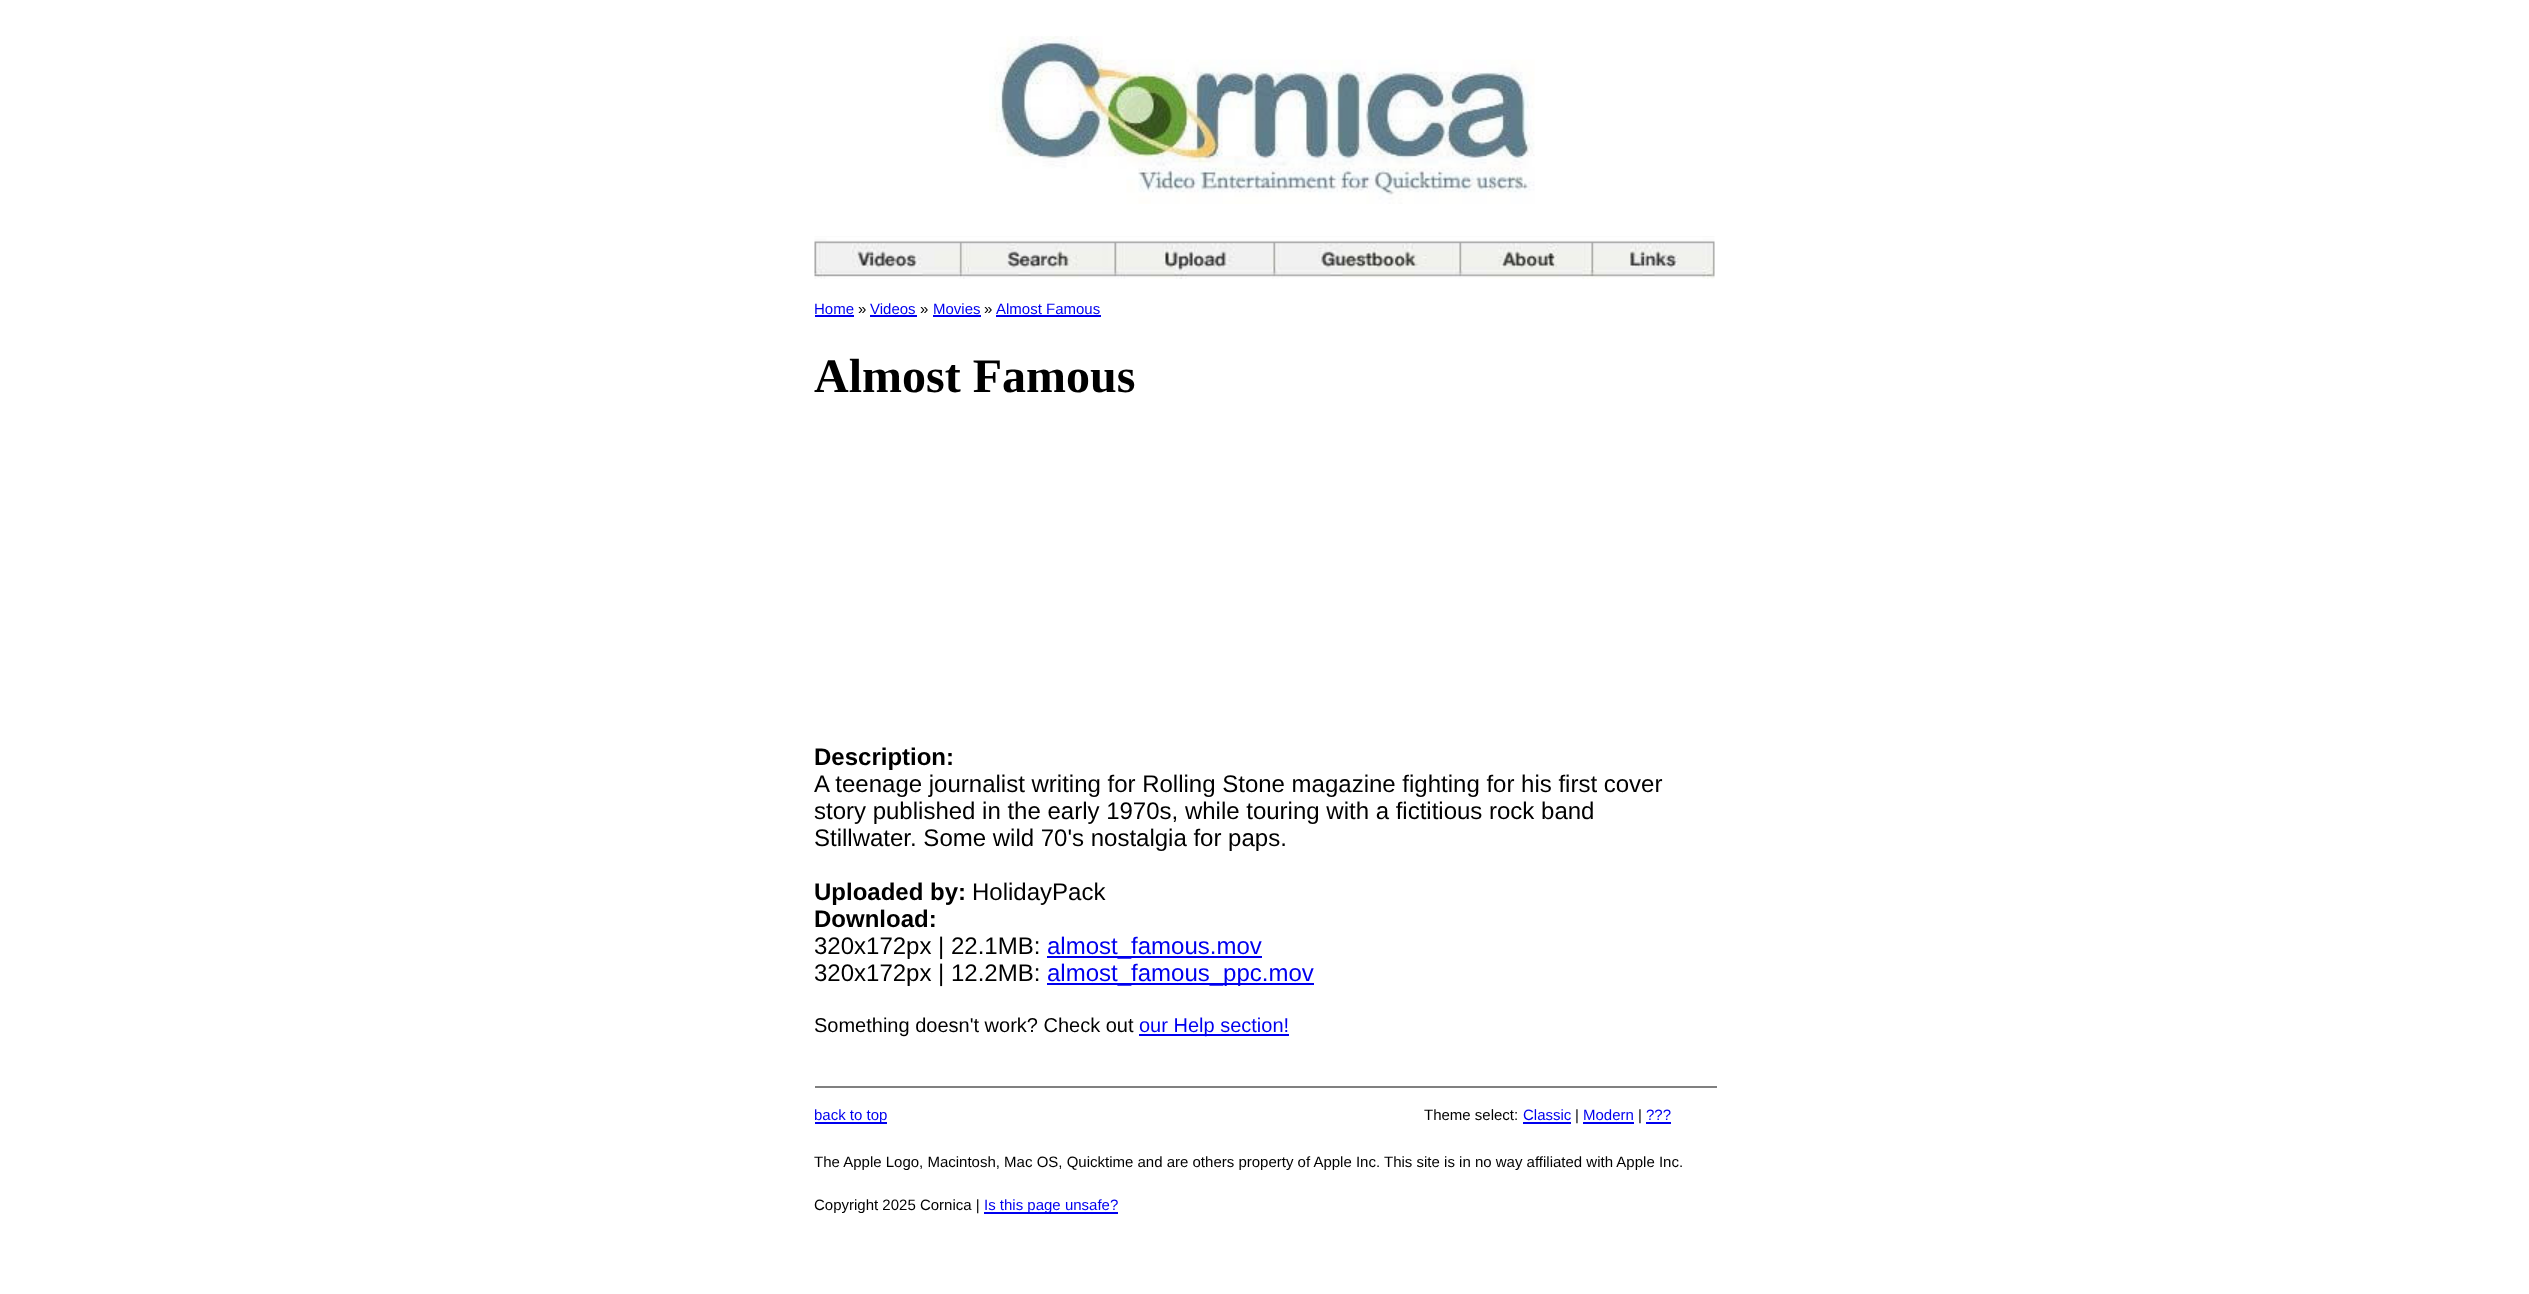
(async () => {
const canvas = document.querySelector("canvas")
canvas.width = 2529
canvas.height = 1294
const c = canvas.getContext("2d")
c.miterLimit = 4
c.fontKerning = "normal"
function T(s,x,y){c.fillText(s,x,y)}
function R(x,y,w,h){c.fillRect(x,y,w,h)}
async function I(src,x,y,w,h){const img=new Image();img.src=src;await img.decode();c.drawImage(img,x,y,w,h)}
c.fillStyle="#fff"
R(0,0,2529,1294)
await I("1.png",989,36,546,168)
await I("2.png",814,236,901,43)
c.font="15px Liberation Sans"
c.fillStyle="#00e"
T("Home",814,314)
R(815,315,39,2)
c.fillStyle="#000"
T("»",858,314)
c.fillStyle="#00e"
T("Videos",870,314)
R(870,315,47,2)
c.fillStyle="#000"
T("»",920,314)
c.fillStyle="#00e"
T("Movies",933,314)
R(933,315,48,2)
c.fillStyle="#000"
T("»",984,314)
c.fillStyle="#00e"
T("Almost Famous",996,314)
R(996,315,105,2)
c.font="bold 48px Liberation Serif"
c.fillStyle="#000"
T("Almost Famous",814,392)
c.font="bold 24px Liberation Sans"
T("Description:",814,765)
c.font="24px Liberation Sans"
T("A teenage journalist writing for Rolling Stone magazine fighting for his first cover",814,792)
T("story published in the early 1970s, while touring with a fictitious rock band",814,819)
T("Stillwater. Some wild 70's nostalgia for paps.",814,846)
c.font="bold 24px Liberation Sans"
T("Uploaded by:",814,900)
c.font="24px Liberation Sans"
T("HolidayPack",972,900)
c.font="bold 24px Liberation Sans"
T("Download:",814,927)
c.font="24px Liberation Sans"
T("320x172px | 22.1MB:",814,954)
c.fillStyle="#00e"
R(1047,956,215,2)
T("almost_famous.mov",1047,954)
c.fillStyle="#000"
T("320x172px | 12.2MB:",814,981)
c.fillStyle="#00e"
R(1047,983,267,2)
T("almost_famous_ppc.mov",1047,981)
c.font="20px Liberation Sans"
c.fillStyle="#000"
T("Something doesn't work? Check out",814,1032)
c.fillStyle="#00e"
R(1139,1034,150,2)
T("our Help section!",1139,1032)
c.fillStyle="#808080"
R(815,1086,902,2)
c.fillStyle="#00e"
R(815,1122,72,2)
c.font="15px Liberation Sans"
T("back to top",814,1120)
c.fillStyle="#000"
T("Theme select:",1424,1120)
c.fillStyle="#00e"
T("Classic",1523,1120)
R(1523,1122,48,2)
c.fillStyle="#000"
T("|",1575,1120)
c.fillStyle="#00e"
T("Modern",1583,1120)
R(1583,1122,51,2)
c.fillStyle="#000"
T("|",1638,1120)
c.fillStyle="#00e"
T("???",1646,1120)
R(1646,1122,25,2)
c.fillStyle="#000"
T("The Apple Logo, Macintosh, Mac OS, Quicktime and are others property of Apple Inc. This site is in no way affiliated with Apple Inc.",814,1167)
T("Copyright 2025 Cornica |",814,1210)
c.fillStyle="#00e"
R(984,1212,134,2)
T("Is this page unsafe?",984,1210)
})()
